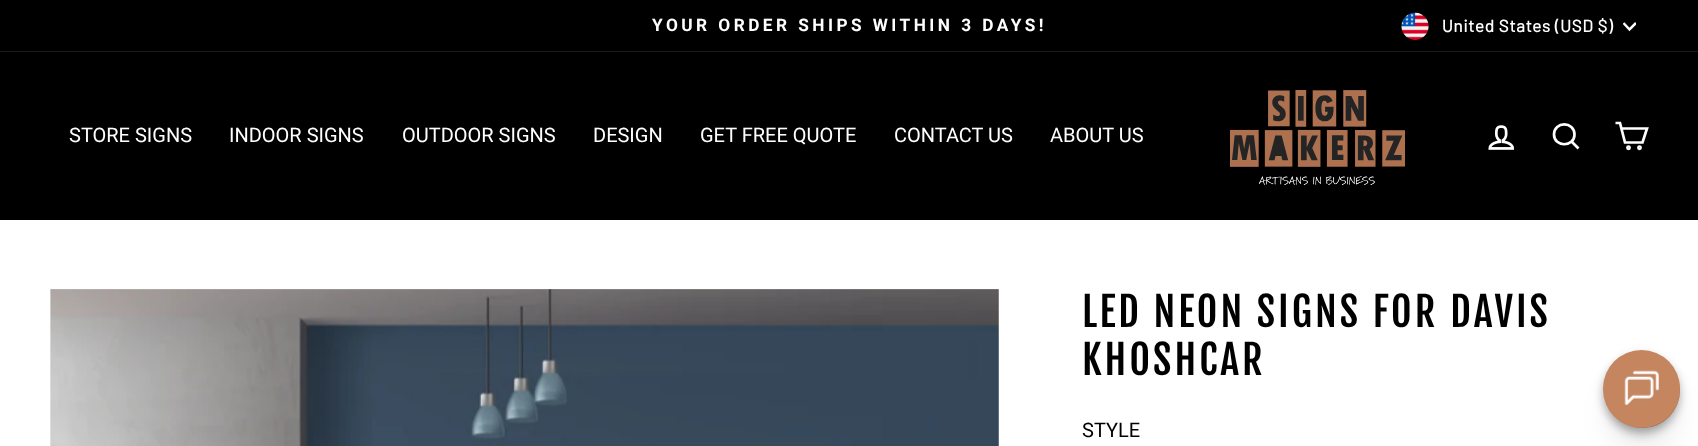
(async () => {
const canvas = document.querySelector("canvas")
canvas.width = 1698
canvas.height = 446
const c = canvas.getContext("2d")
c.miterLimit = 4
c.fontKerning = "normal"
function T(s,x,y){c.fillText(s,x,y)}
function R(x,y,w,h){c.fillRect(x,y,w,h)}
function Q(x,y,w,h,r){c.beginPath();c.roundRect(x,y,w,h,r);c.fill()}
async function I(src,x,y,w,h){const img=new Image();img.src=src;await img.decode();c.drawImage(img,x,y,w,h)}
let path
c.fillStyle="#fff"
R(0,0,1698,446)
c.fillStyle="#000"
R(0,0,1698,51)
c.letterSpacing="3.45px"
c.font="bold 17.25px Roboto"
c.fillStyle="#fff"
T("YOUR ORDER SHIPS WITHIN 3 DAYS!",652,31)
await I("1.png",1401,12,28,28)
c.letterSpacing="0.4px"
c.font="500 17.5px Barlow"
T("United States (USD $)",1442,32)
c.save()
c.beginPath()
c.rect(1623,20,13,14)
c.clip()
path = new Path2D("M1623.5 23l6 6.5l6.5-6.5")
c.strokeStyle="#fff"
c.lineWidth=2.5
c.stroke(path)
c.restore()
c.fillStyle="#000"
R(0,52,1698,168)
c.fillStyle="#1a1a1a"
R(0,51,1698,1)
c.letterSpacing="0px"
c.font="20px Roboto"
c.fillStyle="#fff"
T("STORE SIGNS",69,142)
T("INDOOR SIGNS",229,142)
T("OUTDOOR SIGNS",402,142)
T("DESIGN",593,142)
T("GET FREE QUOTE",700,142)
T("CONTACT US",894,142)
T("ABOUT US",1050,142)
await I("2.png",1230,90,175,95)
await I("3.png",1488,125,27,25)
path = new Path2D("M1574.5 134.5c0 13-20.5 13-20.5 0c0-13.5 20.5-13.5 20.5 0zm4 14l-7-7")
c.strokeStyle="#fff"
c.lineWidth=2.7
c.stroke(path)
path = new Path2D("M1621.5 128.5h25.5l-4.5 14h-17.5l-5-19.5h-4.5")
c.stroke(path)
c.beginPath()
c.arc(1628.5,147.7,1.1,0,7)
c.stroke()
c.beginPath()
c.arc(1639.5,147.7,1.1,0,7)
c.stroke()
await I("4.png",50,289,949,157)
await I("5.png",50,289,1,157)
c.letterSpacing="3px"
c.font="40px Fjalla One"
c.fillStyle="#000"
T("LED NEON SIGNS FOR DAVIS",1082,327)
T("KHOSHCAR",1082,375)
c.letterSpacing="0px"
c.font="20px Roboto"
T("STYLE",1082,437)
c.fillStyle="#0000000a"
c.filter="blur(6px)"
c.beginPath()
c.roundRect(1611,371,63,63,31.5)
c.fill()
c.filter="none"
c.fillStyle="#0000001a"
c.filter="blur(15.5px)"
c.beginPath()
c.roundRect(1611,384,63,62,31)
c.fill()
c.filter="none"
c.fillStyle="#c4855f"
c.beginPath()
c.arc(1642.5,390.5,37.5,0,7)
c.fill()
c.fillStyle="#0000004d"
c.filter="blur(5px)"
c.beginPath()
c.roundRect(1603,355,77,78,38.5)
c.fill()
c.filter="none"
c.fillStyle="#c4855f"
Q(1603,350,77,78,38.5)
await I("6.png",1624,370,35,35)
})()
